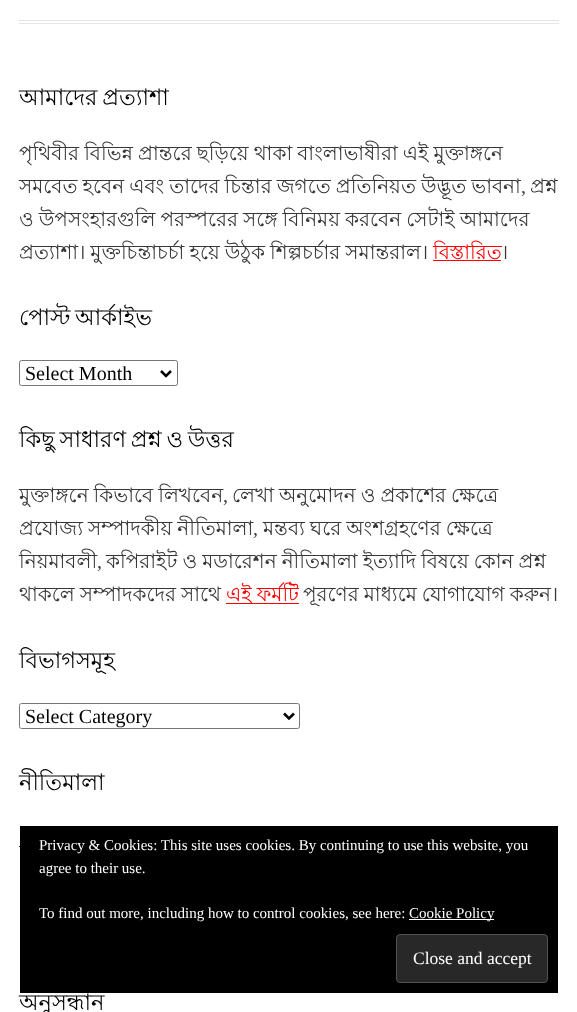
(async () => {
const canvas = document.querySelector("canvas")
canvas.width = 577
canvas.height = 1012
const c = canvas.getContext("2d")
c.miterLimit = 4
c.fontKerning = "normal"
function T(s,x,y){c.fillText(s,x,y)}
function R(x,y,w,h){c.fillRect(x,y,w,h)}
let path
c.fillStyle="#fff"
R(0,0,577,1012)
c.fillStyle="#e5e5e5"
R(19,20,540,1)
R(19,23,540,1)
c.wordSpacing="-1.5px"
c.font="22.5px Lohit Bengali"
c.fillStyle="#000"
T("আমাদের প্রত্যাশা",19,105)
c.wordSpacing="-0.5px"
c.font="20px Lohit Bengali"
c.fillStyle="#373737"
T("পৃথিবীর বিভিন্ন প্রান্তরে ছড়িয়ে থাকা বাংলাভাষীরা এই মুক্তাঙ্গনে",19,160)
T("সমবেত হবেন এবং তাদের চিন্তার জগতে প্রতিনিয়ত উদ্ভূত ভাবনা",19,193)
c.wordSpacing="0px"
c.font="20px Tinos"
T(",",521,193)
c.font="20px Lohit Bengali"
T("প্রশ্ন",530,193)
c.wordSpacing="-0.5px"
T("ও উপসংহারগুলি পরস্পরের সঙ্গে বিনিময় করবেন সেটাই আমাদের",19,226)
T("প্রত্যাশা। মুক্তচিন্তাচর্চা হয়ে উঠুক শিল্পচর্চার সমান্তরাল।",19,259)
c.wordSpacing="0px"
c.fillStyle="#f00"
T("বিস্তারিত",433,259)
R(433,260,68,1)
c.fillStyle="#373737"
T("।",501,259)
c.wordSpacing="-1.5px"
c.font="22.5px Lohit Bengali"
c.fillStyle="#000"
T("পোস্ট আর্কাইভ",19,325)
c.beginPath()
c.roundRect(19.5,360.5,158,25,2)
c.strokeStyle="#767676"
c.stroke()
path = new Path2D("M161 371l5 5l5-5")
c.strokeStyle="#000"
c.lineWidth=2.5
c.stroke(path)
c.wordSpacing="0px"
c.font="20px Tinos"
T("Select Month",25,380)
c.wordSpacing="-1.5px"
c.font="22.5px Lohit Bengali"
T("কিছু সাধারণ প্রশ্ন ও উত্তর",19,447)
c.wordSpacing="-0.5px"
c.font="20px Lohit Bengali"
c.fillStyle="#373737"
T("মুক্তাঙ্গনে কিভাবে লিখবেন",19,502)
c.wordSpacing="0px"
c.font="20px Tinos"
T(",",223,502)
c.wordSpacing="-0.5px"
c.font="20px Lohit Bengali"
T("লেখা অনুমোদন ও প্রকাশের ক্ষেত্রে",232,502)
T("প্রযোজ্য সম্পাদকীয় নীতিমালা",19,535)
c.wordSpacing="0px"
c.font="20px Tinos"
T(",",253,535)
c.wordSpacing="-0.5px"
c.font="20px Lohit Bengali"
T("মন্তব্য ঘরে অংশগ্রহণের ক্ষেত্রে",263,535)
c.wordSpacing="0px"
T("নিয়মাবলী",19,568)
c.font="20px Tinos"
T(",",97,568)
c.wordSpacing="-0.5px"
c.font="20px Lohit Bengali"
T("কপিরাইট ও মডারেশন নীতিমালা ইত্যাদি বিষয়ে কোন প্রশ্ন",106,568)
T("থাকলে সম্পাদকদের সাথে",19,601)
c.fillStyle="#f00"
R(226,603,73,1)
T("এই ফর্মটি",226,601)
c.fillStyle="#373737"
T("পূরণের মাধ্যমে যোগাযোগ করুন।",303,601)
c.wordSpacing="0px"
c.font="22.5px Lohit Bengali"
c.fillStyle="#000"
T("বিভাগসমূহ",19,668)
c.beginPath()
c.roundRect(19.5,703.5,280,25,2)
c.strokeStyle="#767676"
c.lineWidth=1
c.stroke()
path = new Path2D("M284 713.5l5 5l5-5")
c.strokeStyle="#000"
c.lineWidth=2.5
c.stroke(path)
c.font="20px Tinos"
T("Select Category",25,723)
c.font="22.5px Lohit Bengali"
T("নীতিমালা",19,790)
c.fillStyle="#373737"
R(19,846,1,1)
c.fillStyle="#000"
T("অনুসন্ধান",19,1010)
R(20,826,538,167)
c.font="15px Tinos"
c.fillStyle="#fff"
T("Privacy & Cookies: This site uses cookies. By continuing to use this website, you",39,850)
T("agree to their use.",39,873)
T("To find out more, including how to control cookies, see here:",39,918)
R(409,919,85,1)
T("Cookie Policy",409,918)
c.fillStyle="#282828"
c.beginPath()
c.roundRect(396.5,934.5,151,48,3.5)
c.fill()
c.strokeStyle="#535353"
c.lineWidth=1
c.stroke()
c.font="17.5px Tinos"
c.fillStyle="#fff"
T("Close and accept",413,964)
})()
